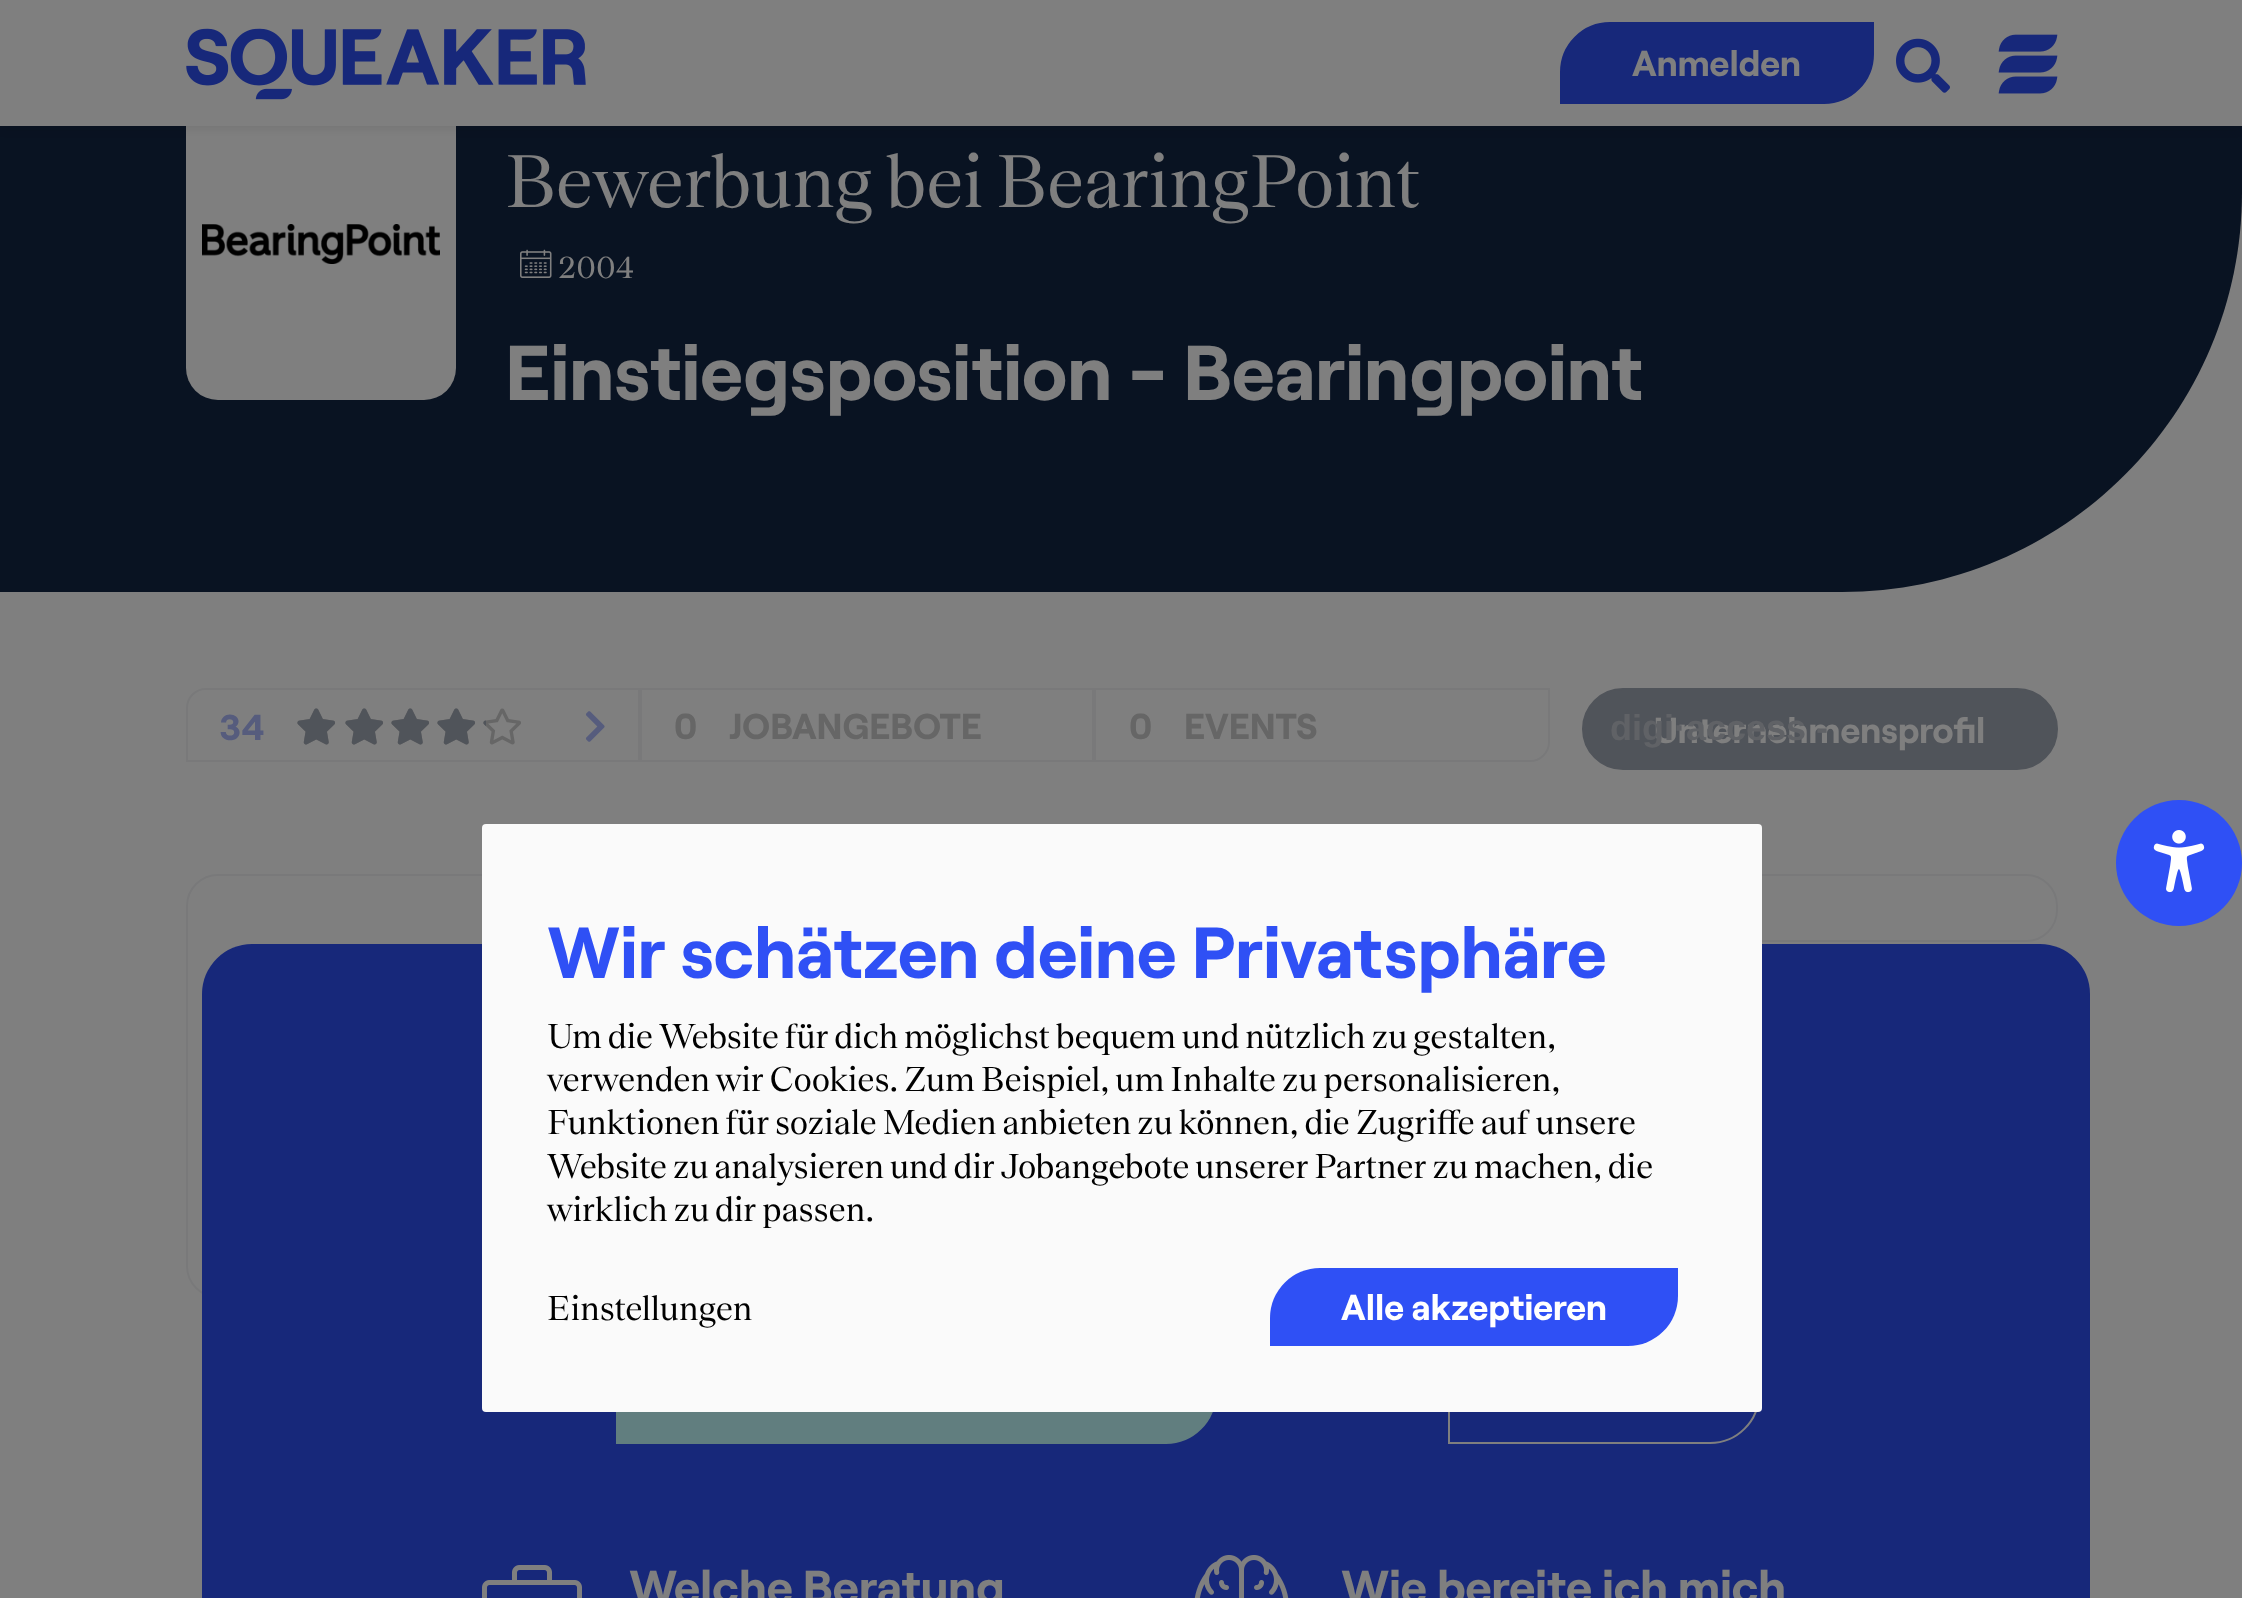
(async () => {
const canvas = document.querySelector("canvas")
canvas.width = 2242
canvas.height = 1598
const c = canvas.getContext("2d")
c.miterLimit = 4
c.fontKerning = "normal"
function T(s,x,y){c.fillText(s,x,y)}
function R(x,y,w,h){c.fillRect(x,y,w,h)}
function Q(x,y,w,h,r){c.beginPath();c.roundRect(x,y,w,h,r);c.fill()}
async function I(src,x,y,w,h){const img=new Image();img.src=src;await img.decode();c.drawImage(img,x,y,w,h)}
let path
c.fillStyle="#fff"
R(0,0,2242,1598)
c.fillStyle="#132644"
path = new Path2D("M0-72h2242v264c0 221-179 400-400 400h-1842z")
c.fill(path)
c.fillStyle="#fff"
Q(186,88,270,312,32)
c.fillStyle="#00000012"
c.filter="blur(4px)"
c.beginPath()
c.rect(0,4,2242,126)
c.fill()
c.filter="none"
c.fillStyle="#fff"
R(0,0,2242,126)
await I("1.png",186,28,400,72)
c.fillStyle="#2f50f5"
c.beginPath()
c.roundRect(1561,23,312,80,[49,0,49,0])
c.fill()
c.strokeStyle="#2f50f5"
c.lineWidth=2
c.stroke()
c.font="bold 36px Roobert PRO"
c.fillStyle="#fff"
T("Anmelden",1632,76)
await I("2.png",1896,38,54,55)
await I("3.png",1998,34,60,60)
await I("4.png",202,224,238,40)
c.font="77.6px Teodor"
T("Bewerbung bei BearingPoint",505,207)
await I("5.png",520,249,32,29)
c.font="31.5px Teodor"
T("2004",558,278)
c.font="bold 77.6px Roobert PRO"
T("Einstiegsposition - Bearingpoint",505,400)
c.beginPath()
c.roundRect(187,689,452,72,[19,0,0,0])
c.strokeStyle="#f2f3f5"
c.stroke()
c.font="bold 36px Roobert PRO"
c.fillStyle="#acb9fb"
T("34",219,740)
await I("6.png",297,708,38,37)
await I("6.png",345,708,38,37)
await I("6.png",391,708,38,37)
await I("6.png",437,708,38,37)
await I("6.png",483,708,38,37)
await I("7.png",297,708,39,37)
await I("7.png",345,708,39,37)
await I("7.png",391,708,39,37)
await I("7.png",437,708,39,37)
await I("8.png",483,720,3,7)
await I("9.png",585,711,20,31)
c.strokeRect(641,689,452,72)
c.fillStyle="#ccc"
T("0",674,739)
T("JOBANGEBOTE",729,739)
c.beginPath()
c.roundRect(1095,689,454,72,[0,0,19,0])
c.stroke()
T("0",1129,739)
T("EVENTS",1184,739)
c.fillStyle="#a1a8b4"
c.beginPath()
c.roundRect(1583,689,474,80,40)
c.fill()
c.strokeStyle="#a1a8b4"
c.stroke()
c.fillStyle="#fff"
T("Unternehmensprofil",1654,743)
c.beginPath()
c.roundRect(187,875,442,422,31)
c.strokeStyle="#f2f3f5"
c.stroke()
c.beginPath()
c.roundRect(1615,875,442,66,31)
c.stroke()
c.fillStyle="#2f50f5"
Q(202,944,1888,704,50)
c.fillStyle="#c3fcff"
c.beginPath()
c.roundRect(617,1363,598,80,[49,0,49,0])
c.fill()
c.strokeStyle="#c3fcff"
c.stroke()
c.beginPath()
c.roundRect(1449,1363,310,80,[49,0,49,0])
c.strokeStyle="#fff"
c.stroke()
await I("10.png",482,1565,100,33)
c.font="bold 47.5px Roobert PRO"
c.fillStyle="#fff"
T("Welche Beratung",629,1604)
await I("11.png",1194,1555,95,43)
T("Wie bereite ich mich",1341,1604)
c.font="bold 36px Liberation Sans"
c.fillStyle="#c0c5cd"
T("digi·access -",1610,740)
c.fillStyle="#00000080"
c.filter="blur(5px)"
c.beginPath()
c.roundRect(-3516,-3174,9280,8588,4004)
c.fill()
c.filter="none"
c.fillStyle="#2f50f5"
c.beginPath()
c.arc(2179,863,63,0,7)
c.fill()
await I("12.png",2153,830,52,63)
c.fillStyle="#fafafa"
Q(482,824,1280,588,4)
c.font="bold 72px Roobert PRO"
c.fillStyle="#2f50f5"
T("Wir schätzen deine Privatsphäre",547,978)
c.font="36px Teodor"
c.fillStyle="#000"
T("Um die Website für dich möglichst bequem und nützlich zu gestalten,",547,1048)
T("verwenden wir Cookies. Zum Beispiel, um Inhalte zu personalisieren,",547,1091)
T("Funktionen für soziale Medien anbieten zu können, die Zugriffe auf unsere",547,1134)
T("Website zu analysieren und dir Jobangebote unserer Partner zu machen, die",547,1178)
T("wirklich zu dir passen.",547,1221)
T("Einstellungen",547,1320)
c.fillStyle="#2f50f5"
c.beginPath()
c.roundRect(1270,1268,408,78,[50,0,50,0])
c.fill()
c.font="bold 36px Roobert PRO"
c.fillStyle="#fff"
T("Alle akzeptieren",1341,1320)
})()
